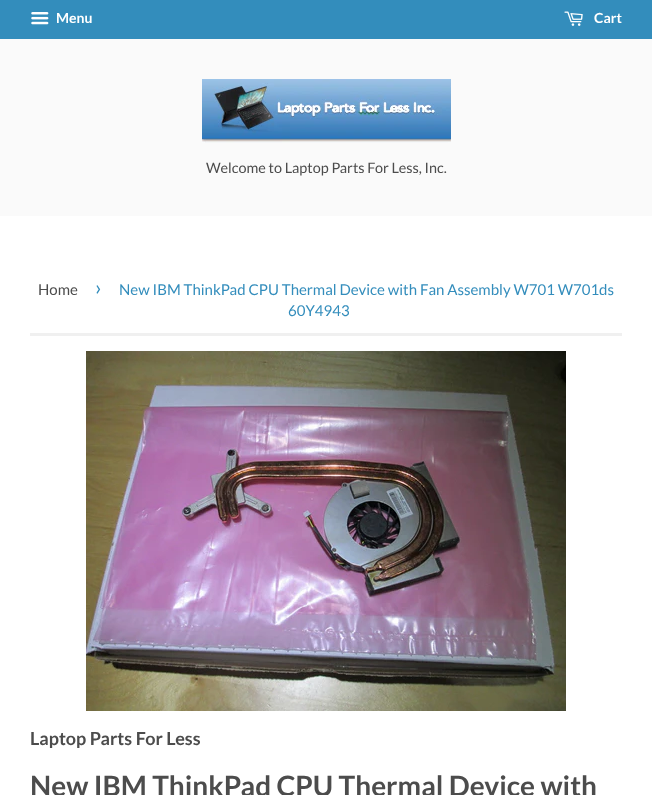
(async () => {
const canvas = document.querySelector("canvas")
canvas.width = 652
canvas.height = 795
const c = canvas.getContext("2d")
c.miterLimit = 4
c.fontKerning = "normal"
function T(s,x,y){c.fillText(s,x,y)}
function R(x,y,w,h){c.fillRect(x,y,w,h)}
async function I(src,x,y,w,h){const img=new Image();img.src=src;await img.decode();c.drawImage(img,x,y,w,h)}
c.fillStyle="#fff"
R(0,0,652,795)
c.fillStyle="#338dbc"
R(0,0,652,39)
await I("1.png",31,12,18,13)
c.font="bold 14px Lato"
c.fillStyle="#fff"
T("Menu",56,23)
await I("2.png",564,11,19,15)
T("Cart",594,23)
c.fillStyle="#fafafa"
R(0,39,652,177)
await I("3.png",202,79,249,64)
c.font="14.4px Lato"
c.fillStyle="#4c4c4c"
T("Welcome to Laptop Parts For Less, Inc.",206,173)
c.fillStyle="#f0f0f0"
R(30,333,592,3)
c.font="15px Lato"
c.fillStyle="#4c4c4c"
T("Home",38,295)
c.font="21px Lato"
c.fillStyle="#338dbc"
T("›",95,295)
c.font="15px Lato"
T("New IBM ThinkPad CPU Thermal Device with Fan Assembly W701 W701ds",119,295)
T("60Y4943",288,316)
await I("4.png",86,351,480,360)
c.font="bold 18px Lato"
c.fillStyle="#4c4c4c"
T("Laptop Parts For Less",30,745)
c.font="bold 28px Lato"
T("New IBM ThinkPad CPU Thermal Device with",30,796)
})()
